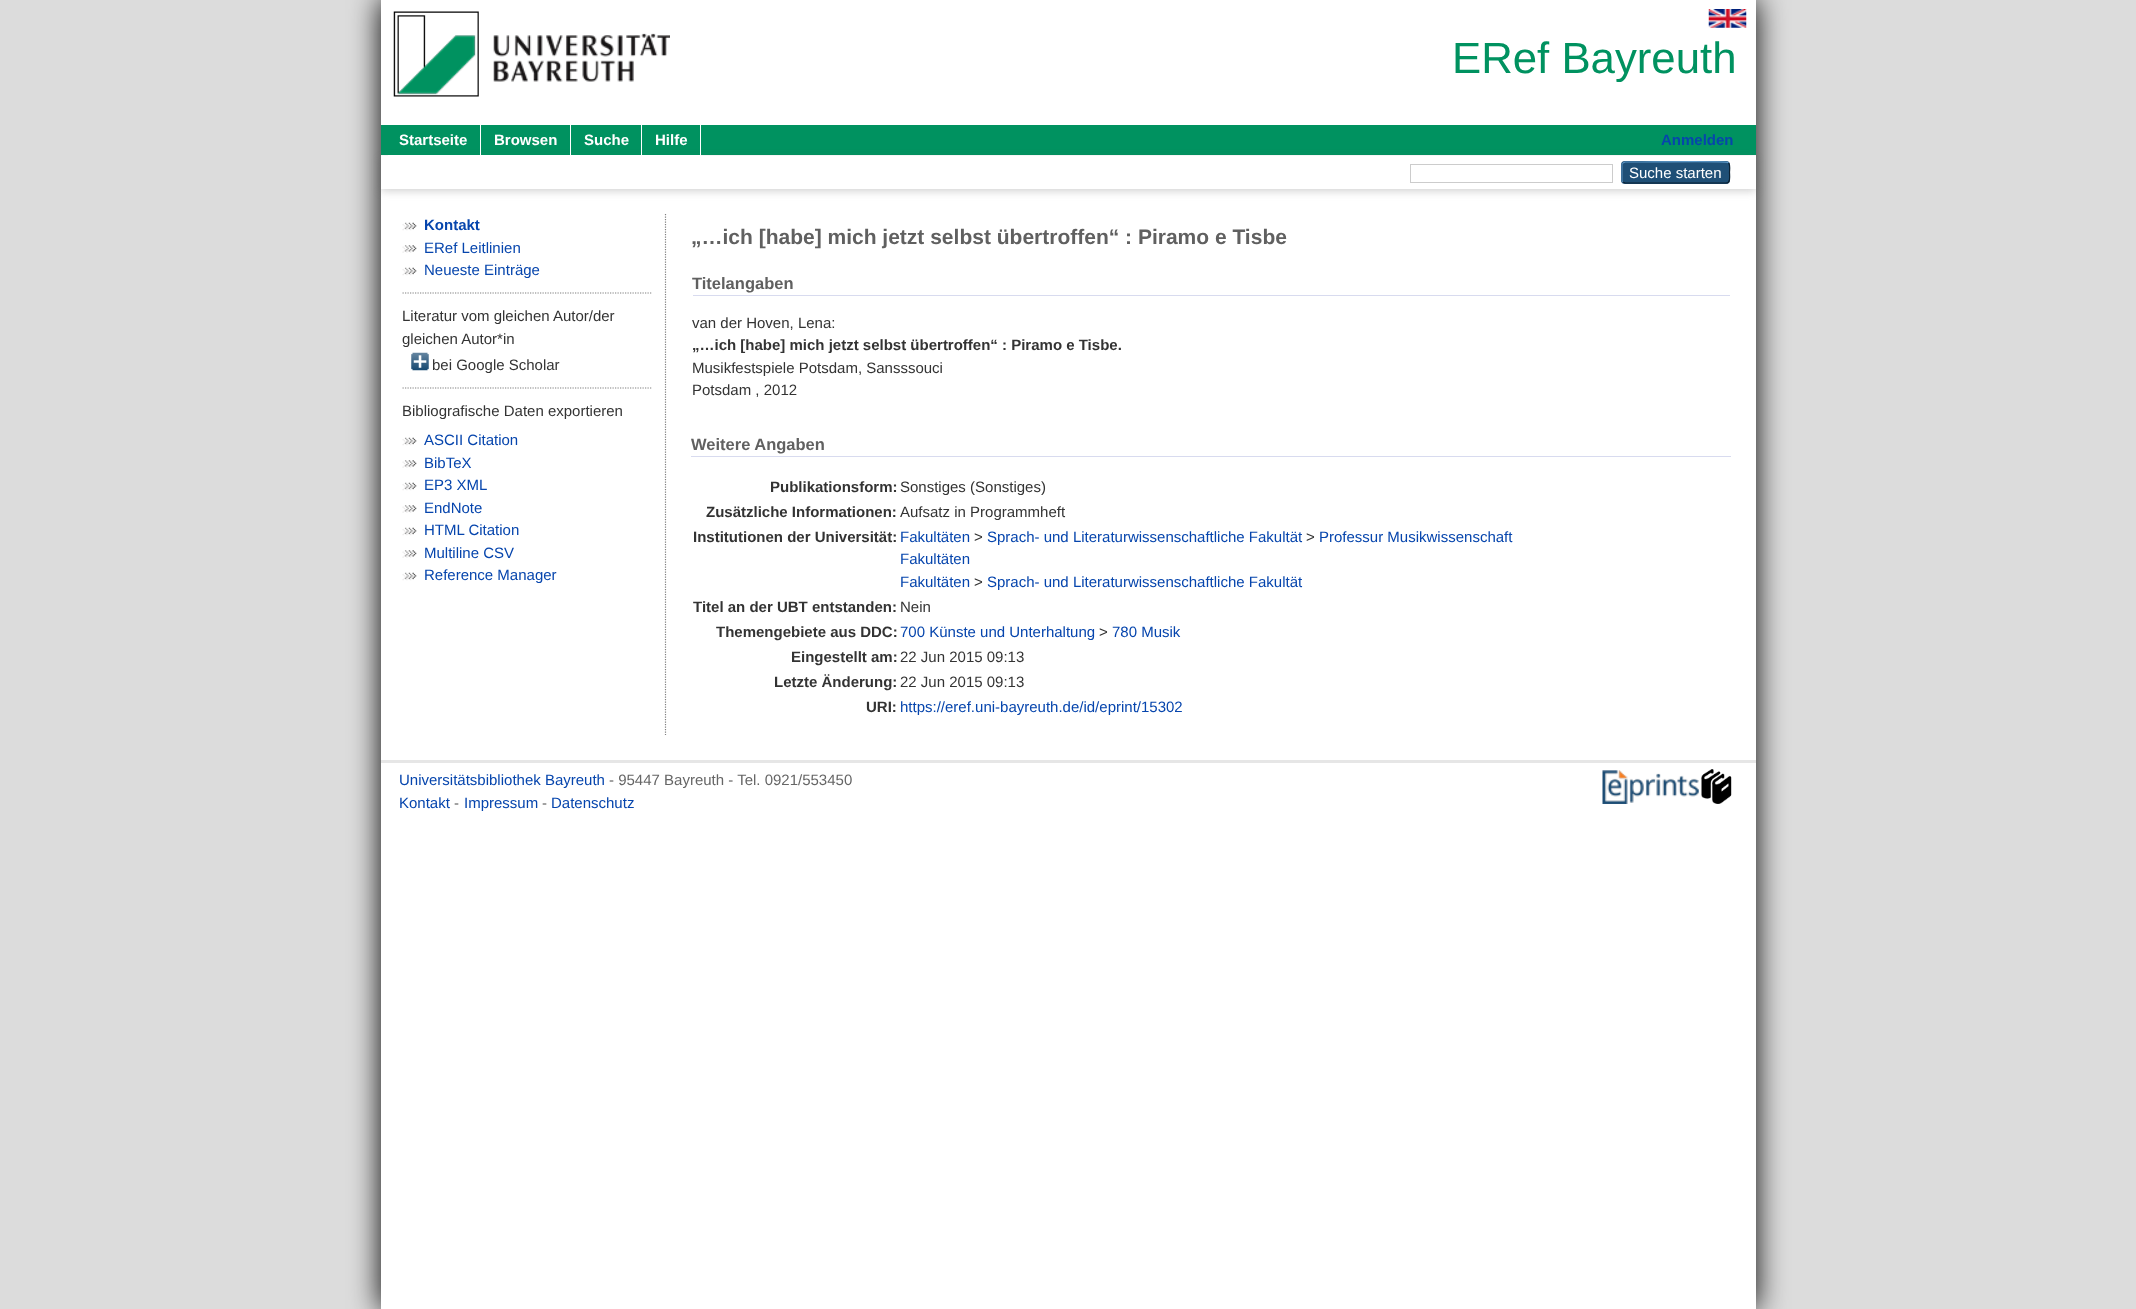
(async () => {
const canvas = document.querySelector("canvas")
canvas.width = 2136
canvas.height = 1309
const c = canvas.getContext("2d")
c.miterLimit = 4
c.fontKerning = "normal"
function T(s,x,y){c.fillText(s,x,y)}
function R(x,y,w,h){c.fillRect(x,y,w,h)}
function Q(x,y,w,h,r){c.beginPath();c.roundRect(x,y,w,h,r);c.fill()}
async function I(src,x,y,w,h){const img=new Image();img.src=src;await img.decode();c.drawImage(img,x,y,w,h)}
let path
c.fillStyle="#dcdcdc"
R(0,0,2136,1309)
c.fillStyle="#000"
c.filter="blur(15px)"
c.beginPath()
c.rect(381,-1,1375,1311)
c.fill()
c.filter="none"
c.fillStyle="#fff"
R(381,0,1375,1309)
await I("1.png",393,11,277,86)
await I("2.png",1708,9,39,19)
c.font="43.75px Liberation Sans"
c.fillStyle="#009260"
T("ERef Bayreuth",1452,73)
R(381,125,1375,30)
c.fillStyle="#6464644d"
c.filter="blur(4px)"
c.beginPath()
c.rect(381,159,1375,32)
c.fill()
c.filter="none"
c.fillStyle="#009260"
R(388,154,312,1)
c.fillStyle="#fff"
R(388,155,313,1)
R(480,125,1,30)
c.font="bold 15px Liberation Sans"
T("Startseite",399,145)
R(570,125,1,30)
T("Browsen",494,145)
R(641,125,1,30)
T("Suche",584,145)
R(700,125,1,30)
T("Hilfe",655,145)
c.fillStyle="#0645ad"
T("Anmelden",1661,145)
c.fillStyle="#fff"
R(381,156,1375,33)
c.strokeStyle="#ccc"
c.strokeRect(1410.5,164.5,202,18)
c.fillStyle="#1f4f76"
Q(1621,161,109,23,4)
path = new Path2D("M1623 163l2-1h17c9 0 83.5-1 86 .5l.5 .5")
c.strokeStyle="#5b97c7"
c.lineWidth=1.2
c.stroke(path)
path = new Path2D("M1728.5 163c2 2 1 7 1 9.5c0 2.5 1.5 10.5-3.5 10.5h-101l-2-1")
c.strokeStyle="#0d2131"
c.stroke(path)
path = new Path2D("M1623 182c-1-.5-1-1-1-2v-15c0-1 0-1.5 1-2")
c.strokeStyle="#5287b3"
c.stroke(path)
c.font="15px Liberation Sans"
c.fillStyle="#fff"
T("Suche starten",1629,178)
await I("3.png",402,222,15,9)
c.font="bold 15px Liberation Sans"
c.fillStyle="#0645ad"
T("Kontakt",424,230)
await I("4.png",402,245,15,8)
c.font="15px Liberation Sans"
T("ERef Leitlinien",424,253)
await I("3.png",402,267,15,9)
T("Neueste Einträge",424,275)
path = new Path2D("M402.5 293h250")
c.strokeStyle="#808080"
c.setLineDash([1.25,1.25])
c.stroke(path)
c.fillStyle="#333"
T("Literatur vom gleichen Autor/der",402,321)
T("gleichen Autor*in",402,344)
await I("5.png",411,352,18,19)
T("bei Google Scholar",432,370)
path = new Path2D("M402.5 388h250")
c.stroke(path)
T("Bibliografische Daten exportieren",402,416)
await I("3.png",402,437,15,9)
c.fillStyle="#0645ad"
T("ASCII Citation",424,445)
await I("4.png",402,460,15,8)
T("BibTeX",424,468)
await I("3.png",402,482,15,9)
T("EP3 XML",424,490)
await I("4.png",402,505,15,8)
T("EndNote",424,513)
await I("3.png",402,527,15,9)
T("HTML Citation",424,535)
await I("4.png",402,550,15,8)
T("Multiline CSV",424,558)
await I("3.png",402,572,15,9)
T("Reference Manager",424,580)
path = new Path2D("M665.5 214v521")
c.stroke(path)
c.font="bold 21px Liberation Sans"
c.fillStyle="#606060"
T("„…ich [habe] mich jetzt selbst übertroffen“ : Piramo e Tisbe",691,244)
c.fillStyle="#d8dbef"
R(693,295,1037,1)
c.font="bold 16.5px Liberation Sans"
c.fillStyle="#606060"
T("Titelangaben",692,289)
c.font="15px Liberation Sans"
c.fillStyle="#333"
T("van der Hoven, Lena:",692,328)
c.font="bold 15px Liberation Sans"
T("„…ich [habe] mich jetzt selbst übertroffen“ : Piramo e Tisbe.",692,350)
c.font="15px Liberation Sans"
T("Musikfestspiele Potsdam, Sansssouci",692,373)
T("Potsdam , 2012",692,395)
c.fillStyle="#d8dbef"
R(691,456,1040,1)
c.font="bold 16.5px Liberation Sans"
c.fillStyle="#606060"
T("Weitere Angaben",691,450)
c.font="bold 15px Liberation Sans"
c.fillStyle="#333"
T("Publikationsform:",770,492)
c.font="15px Liberation Sans"
T("Sonstiges (Sonstiges)",900,492)
c.font="bold 15px Liberation Sans"
T("Zusätzliche Informationen:",706,517)
c.font="15px Liberation Sans"
T("Aufsatz in Programmheft",900,517)
c.font="bold 15px Liberation Sans"
T("Institutionen der Universität:",693,542)
c.font="15px Liberation Sans"
c.fillStyle="#0645ad"
T("Fakultäten",900,542)
c.fillStyle="#333"
T(">",974,542)
c.fillStyle="#0645ad"
T("Sprach- und Literaturwissenschaftliche Fakultät",987,542)
c.fillStyle="#333"
T(">",1306,542)
c.fillStyle="#0645ad"
T("Professur Musikwissenschaft",1319,542)
T("Fakultäten",900,564)
T("Fakultäten",900,587)
c.fillStyle="#333"
T(">",974,587)
c.fillStyle="#0645ad"
T("Sprach- und Literaturwissenschaftliche Fakultät",987,587)
c.font="bold 15px Liberation Sans"
c.fillStyle="#333"
T("Titel an der UBT entstanden:",693,612)
c.font="15px Liberation Sans"
T("Nein",900,612)
c.font="bold 15px Liberation Sans"
T("Themengebiete aus DDC:",716,637)
c.font="15px Liberation Sans"
c.fillStyle="#0645ad"
T("700 Künste und Unterhaltung",900,637)
c.fillStyle="#333"
T(">",1099,637)
c.fillStyle="#0645ad"
T("780 Musik",1112,637)
c.font="bold 15px Liberation Sans"
c.fillStyle="#333"
T("Eingestellt am:",791,662)
c.font="15px Liberation Sans"
T("22 Jun 2015 09:13",900,662)
c.font="bold 15px Liberation Sans"
T("Letzte Änderung:",774,687)
c.font="15px Liberation Sans"
T("22 Jun 2015 09:13",900,687)
c.font="bold 15px Liberation Sans"
T("URI:",866,712)
c.font="15px Liberation Sans"
c.fillStyle="#0645ad"
T("https://eref.uni-bayreuth.de/id/eprint/15302",900,712)
c.fillStyle="#e6e6e6"
R(381,760,1375,3)
c.fillStyle="#0645ad"
T("Universitätsbibliothek Bayreuth",399,785)
c.fillStyle="#666"
T("- 95447 Bayreuth - Tel. 0921/553450",609,785)
c.fillStyle="#0645ad"
T("Kontakt",399,808)
c.fillStyle="#666"
T("-",454,808)
c.fillStyle="#0645ad"
T("Impressum",464,808)
c.fillStyle="#666"
T("-",542,808)
c.fillStyle="#0645ad"
T("Datenschutz",551,808)
await I("6.png",1602,770,97,34)
await I("7.png",1701,769,31,35)
})()
